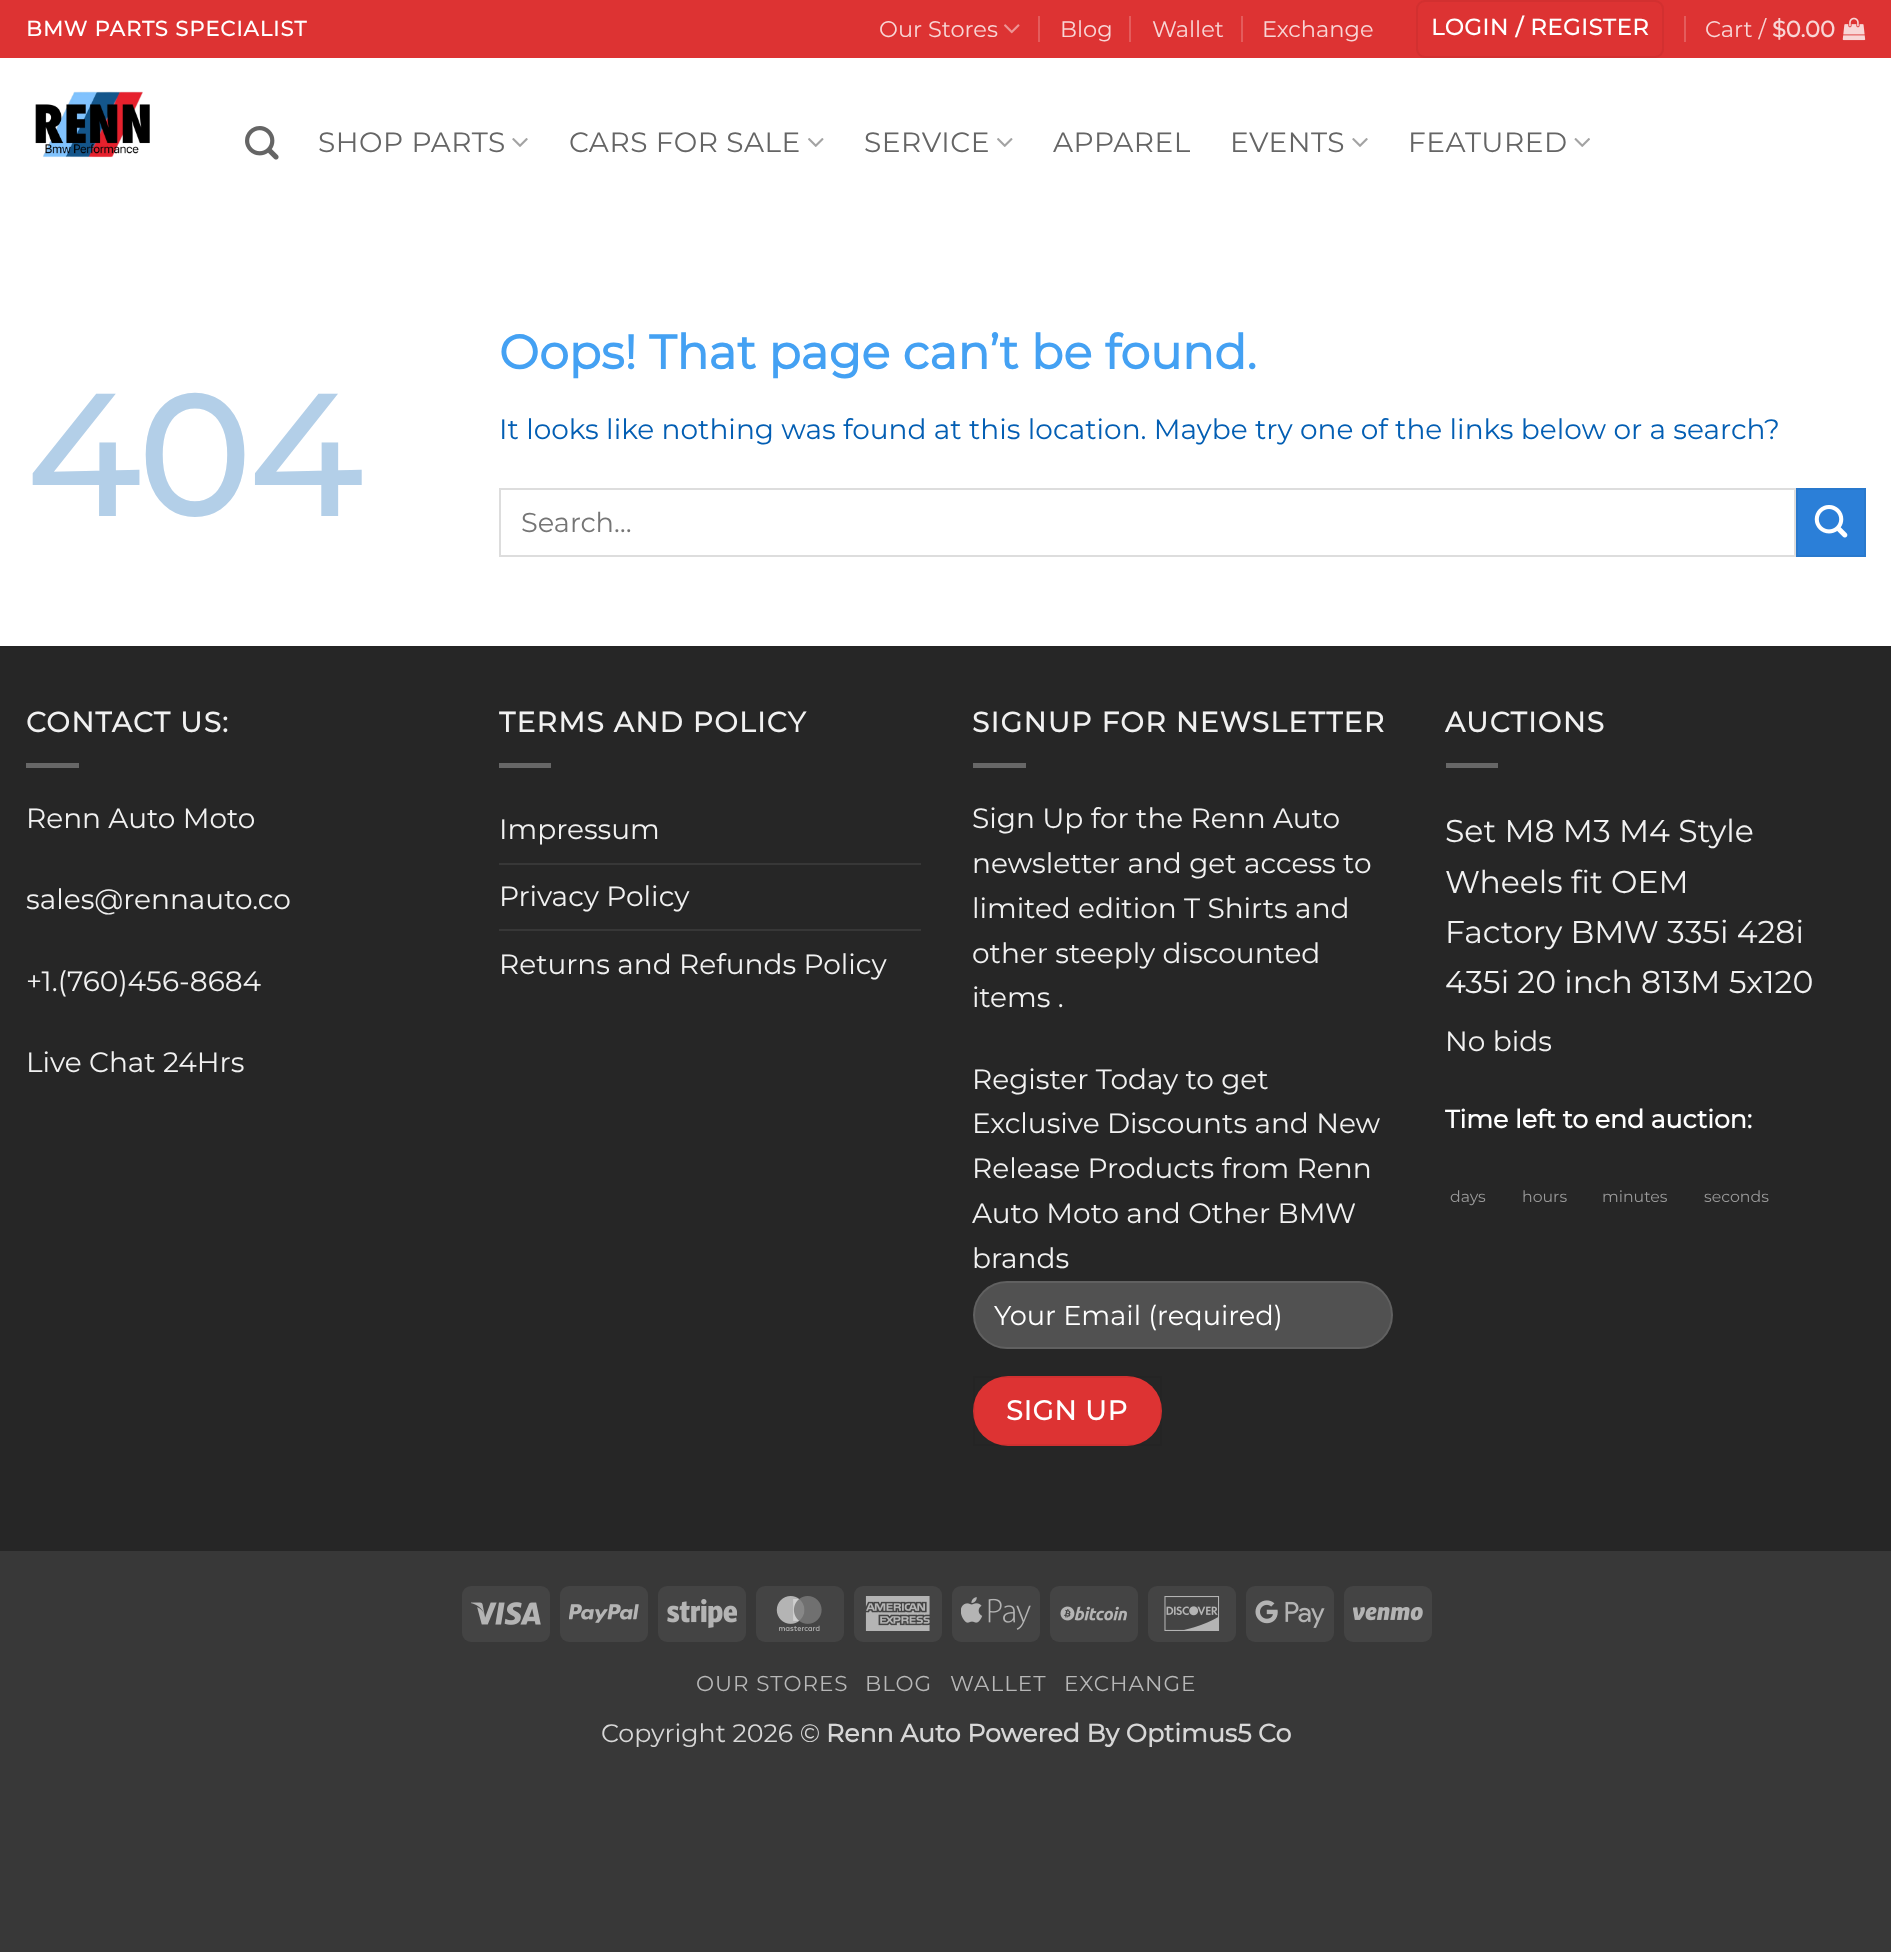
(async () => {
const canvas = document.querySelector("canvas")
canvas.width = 1891
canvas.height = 1952
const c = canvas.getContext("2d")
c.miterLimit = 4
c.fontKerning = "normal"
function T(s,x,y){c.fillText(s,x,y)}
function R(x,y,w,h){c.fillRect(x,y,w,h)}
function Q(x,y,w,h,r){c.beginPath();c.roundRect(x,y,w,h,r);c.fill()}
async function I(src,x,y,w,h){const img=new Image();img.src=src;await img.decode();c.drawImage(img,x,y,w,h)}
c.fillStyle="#383838"
R(0,0,1891,1952)
c.fillStyle="#fff"
R(0,58,1891,588)
c.fillStyle="#d33"
R(0,0,1891,58)
c.letterSpacing="1.05px"
c.font="bold 21px Montserrat"
c.fillStyle="#fff"
T("BMW PARTS SPECIALIST",26,36)
c.letterSpacing="0px"
c.font="100 22.5px Montserrat"
c.fillStyle="#f8d6d6"
T("Our Stores",879,37)
await I("1.png",1004,24,16,10)
c.fillStyle="#e45c5c"
R(1038,16,2,26)
c.fillStyle="#f8d6d6"
T("Blog",1060,37)
c.fillStyle="#e45c5c"
R(1129,16,2,26)
c.fillStyle="#f8d6d6"
T("Wallet",1152,37)
c.fillStyle="#e45c5c"
R(1241,16,2,26)
c.fillStyle="#f8d6d6"
T("Exchange",1262,37)
c.beginPath()
c.roundRect(1417,1,246,56,8)
c.strokeStyle="#d23030"
c.lineWidth=2
c.stroke()
c.letterSpacing="0.7px"
c.font="bold 22.5px Montserrat"
c.fillStyle="#fff"
T("LOGIN / REGISTER",1431,35)
c.fillStyle="#e45c5c"
R(1684,16,2,26)
c.letterSpacing="0px"
c.font="100 22.5px Montserrat"
c.fillStyle="#f8d6d6"
T("Cart /",1705,37)
c.font="bold 22.5px Montserrat"
T("$0.00",1772,37)
await I("2.png",1842,17,24,24)
await I("3.png",35,91,115,67)
await I("4.png",245,126,34,34)
c.letterSpacing="0.5px"
c.font="100 28px Montserrat"
c.fillStyle="#656565"
T("SHOP PARTS",318,152)
await I("5.png",512,138,16,9)
T("CARS FOR SALE",569,152)
await I("6.png",808,138,16,9)
T("SERVICE",864,152)
await I("6.png",997,138,16,9)
T("APPAREL",1053,152)
T("EVENTS",1230,152)
await I("5.png",1352,138,16,9)
T("FEATURED",1408,152)
await I("7.png",1574,138,16,9)
c.letterSpacing="0px"
c.font="bold 168px Montserrat"
c.fillStyle="#b3cfe8"
T("404",26,516)
c.font="bold 47.6px Montserrat"
c.fillStyle="#44a1f3"
T("Oops! That page can’t be found.",499,369)
c.font="100 28px Montserrat"
c.fillStyle="#035eb3"
T("It looks like nothing was found at this location. Maybe try one of the links below or a search?",499,439)
c.strokeStyle="#ddd"
c.strokeRect(500,489,1295,67)
c.font="100 27.25px Montserrat"
c.fillStyle="#757575"
T("Search…",521,532)
c.fillStyle="#2b7fd8"
c.beginPath()
c.rect(1797,489,68,67)
c.fill()
c.strokeStyle="#2979cd"
c.stroke()
await I("8.png",1814,505,34,33)
c.fillStyle="#262626"
R(0,648,1891,903)
c.fillStyle="#242424"
R(0,646,1891,2)
c.letterSpacing="1.4px"
c.font="bold 28px Montserrat"
c.fillStyle="#f1f1f1"
T("CONTACT US:",26,732)
c.fillStyle="#676767"
R(26,763,53,5)
c.letterSpacing="0px"
c.font="100 28px Montserrat"
c.fillStyle="#f1f1f1"
T("Renn Auto Moto",26,828)
T("sales@rennauto.co",26,909)
T("+1.(760)456-8684",26,991)
T("Live Chat 24Hrs",26,1072)
c.letterSpacing="1.4px"
c.font="bold 28px Montserrat"
T("TERMS AND POLICY",499,732)
c.fillStyle="#676767"
R(499,763,52,5)
c.letterSpacing="0px"
c.font="100 28px Montserrat"
c.fillStyle="#f1f1f1"
T("Impressum",499,839)
c.fillStyle="#373737"
R(499,863,422,2)
c.fillStyle="#f1f1f1"
T("Privacy Policy",499,906)
c.fillStyle="#373737"
R(499,929,422,2)
c.fillStyle="#f1f1f1"
T("Returns and Refunds Policy",499,974)
c.letterSpacing="1.4px"
c.font="bold 28px Montserrat"
T("SIGNUP FOR NEWSLETTER",972,732)
c.fillStyle="#676767"
R(973,763,53,5)
c.letterSpacing="0px"
c.font="100 28px Montserrat"
c.fillStyle="#f1f1f1"
T("Sign Up for the Renn Auto",972,828)
T("newsletter and get access to",972,873)
T("limited edition T Shirts and",972,918)
T("other steeply discounted",972,963)
T("items .",972,1007)
T("Register Today to get",972,1089)
T("Exclusive Discounts and New",972,1133)
T("Release Products from Renn",972,1178)
T("Auto Moto and Other BMW",972,1223)
T("brands",972,1268)
c.fillStyle="#515151"
Q(973,1281,420,68,34)
c.beginPath()
c.roundRect(974,1282,418,66,33)
c.strokeStyle="#ffffff17"
c.stroke()
c.font="100 27.25px Montserrat"
c.fillStyle="#fff"
T("Your Email (required)",994,1325)
c.fillStyle="#d33"
Q(973,1376,189,70,35)
c.strokeStyle="#0000000d"
c.strokeRect(974,1377,187,68)
c.letterSpacing="0.75px"
c.font="bold 27.25px Montserrat"
c.fillStyle="#fff"
T("SIGN UP",1006,1420)
c.letterSpacing="1.4px"
c.font="bold 28px Montserrat"
c.fillStyle="#f1f1f1"
T("AUCTIONS",1445,732)
c.fillStyle="#676767"
R(1446,763,52,5)
c.letterSpacing="0px"
c.font="100 31.5px Montserrat"
c.fillStyle="#f1f1f1"
T("Set M8 M3 M4 Style",1445,842)
T("Wheels fit OEM",1445,893)
T("Factory BMW 335i 428i",1445,943)
T("435i 20 inch 813M 5x120",1445,993)
c.font="100 28px Montserrat"
T("No bids",1445,1051)
c.font="bold 25.25px Montserrat"
c.fillStyle="#fff"
T("Time left to end auction:",1445,1128)
c.font="100 15.75px Montserrat"
c.fillStyle="#999"
T("days",1450,1202)
T("hours",1522,1202)
T("minutes",1602,1202)
T("seconds",1704,1202)
c.fillStyle="#444"
Q(462,1586,88,56,9)
await I("9.png",471,1602,70,23)
Q(560,1586,88,56,9)
await I("10.png",569,1604,70,19)
Q(658,1586,88,56,9)
await I("11.png",667,1599,70,29)
Q(756,1586,88,56,9)
await I("12.png",776,1596,46,35)
Q(854,1586,88,56,9)
await I("13.png",865,1596,65,35)
Q(952,1586,88,56,9)
await I("14.png",961,1597,70,33)
Q(1050,1586,88,56,9)
await I("15.png",1060,1606,67,15)
Q(1148,1586,88,56,9)
await I("16.png",1164,1596,56,35)
Q(1246,1586,88,56,9)
await I("17.png",1255,1600,70,28)
Q(1344,1586,88,56,9)
await I("18.png",1353,1607,70,14)
c.letterSpacing="1px"
c.font="100 21.5px Montserrat"
c.fillStyle="#b7b7b7"
T("OUR STORES",696,1691)
T("BLOG",865,1691)
T("WALLET",950,1691)
T("EXCHANGE",1064,1691)
c.letterSpacing="0px"
c.font="100 25.25px Montserrat"
c.fillStyle="#d7d7d7"
T("Copyright 2026 ©",601,1742)
c.font="bold 25.25px Montserrat"
T("Renn Auto Powered By Optimus5 Co",826,1742)
})()
